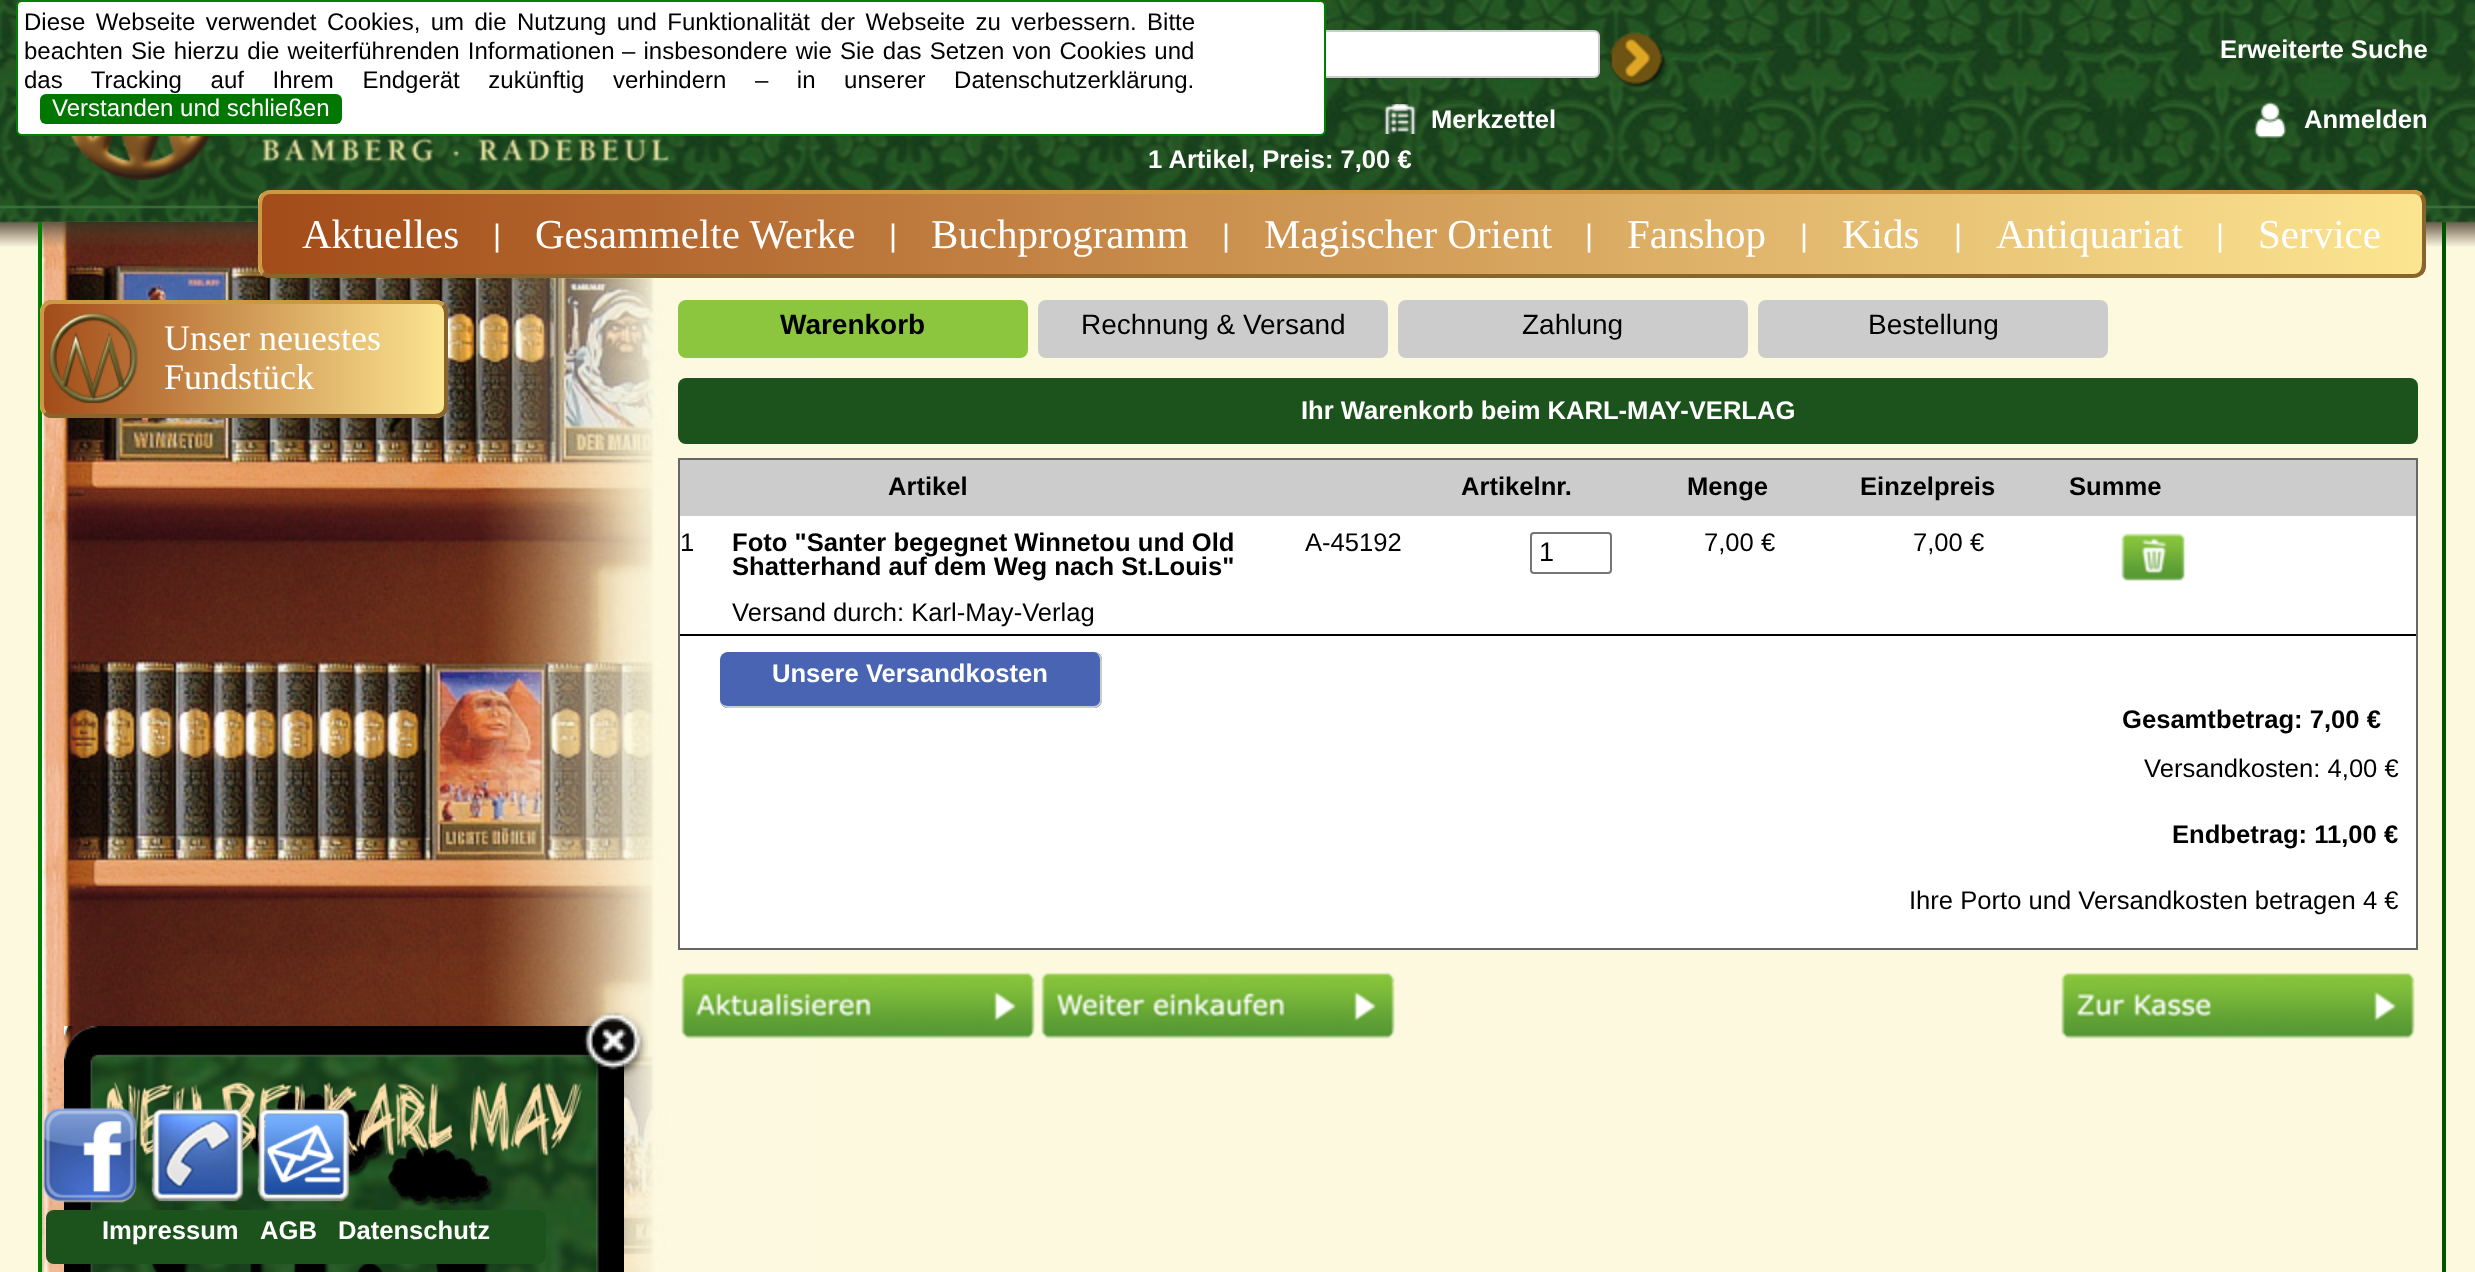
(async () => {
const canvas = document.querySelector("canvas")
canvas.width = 2475
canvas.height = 1272
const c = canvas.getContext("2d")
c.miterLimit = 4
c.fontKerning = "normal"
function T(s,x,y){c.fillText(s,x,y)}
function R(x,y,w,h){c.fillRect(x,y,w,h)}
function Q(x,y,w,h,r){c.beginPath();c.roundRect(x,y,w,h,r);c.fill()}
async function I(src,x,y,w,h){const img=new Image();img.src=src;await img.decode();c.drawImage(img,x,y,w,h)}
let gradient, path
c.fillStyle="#fcf9df"
R(0,0,2475,1272)
await I("1.png",0,0,2475,247)
c.fillStyle="#fff"
c.beginPath()
c.roundRect(1149,31,450,46,5)
c.fill()
c.strokeStyle="#ccc"
c.lineWidth=2
c.stroke()
c.beginPath()
c.roundRect(17,1,1308,134,5)
c.fill()
c.strokeStyle="#008000"
c.stroke()
c.wordSpacing="3.75px"
c.font="24px Liberation Sans"
c.fillStyle="#000"
T("Diese Webseite verwendet Cookies, um die Nutzung und Funktionalität der Webseite zu verbessern. Bitte",24,30)
c.wordSpacing="1.5px"
T("beachten Sie hierzu die weiterführenden Informationen",24,59)
T("– insbesondere wie Sie das Setzen von Cookies und",622,59)
c.wordSpacing="21.9px"
T("das Tracking auf Ihrem Endgerät zukünftig verhindern – in unserer Datenschutzerklärung.",24,88)
c.fillStyle="#070"
Q(40,94,302,30,6)
c.wordSpacing="0px"
c.fillStyle="#fff"
T("Verstanden und schließen",52,116)
await I("2.png",1609,31,57,58)
c.font="bold 25.6px Liberation Sans"
T("Erweiterte Suche",2220,58)
await I("3.png",70,136,600,44)
await I("4.png",1383,104,34,30)
T("Merkzettel",1431,128)
await I("5.png",2254,102,32,36)
T("Anmelden",2304,128)
T("1 Artikel, Preis: 7,00 €",1148,168)
await I("6.png",42,222,778,1050)
c.save()
c.beginPath()
c.roundRect(258,190,2168,88,12)
c.clip()
gradient = c.createLinearGradient(-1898,234,262,234)
gradient.addColorStop(0,"#a34c19")
gradient.addColorStop(1,"#fce591")
c.fillStyle = gradient
R(258,190,4,88)
gradient = c.createLinearGradient(262,234,2422,234)
gradient.addColorStop(0,"#a34c19")
gradient.addColorStop(1,"#fce591")
c.fillStyle = gradient
R(262,190,2160,88)
gradient = c.createLinearGradient(2422,234,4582,234)
gradient.addColorStop(0,"#a34c19")
gradient.addColorStop(1,"#fce591")
c.fillStyle = gradient
R(2422,190,4,88)
c.restore()
path = new Path2D("M2421 195c4.5 5 3 12.5 3 18v42c0 8 1.5 21-11 21h-2142c-3 0-6-1-8-3")
c.strokeStyle="#88652d"
c.lineWidth=4
c.stroke(path)
path = new Path2D("M263 273c-4.5-5-3-12.5-3-18v-42c0-8-1.5-21 11-21h2142c3 0 6 1 8 3")
c.strokeStyle="#cc9844"
c.stroke(path)
c.font="41px Tinos"
T("Aktuelles",302,248)
c.font="31px Liberation Sans"
T("|",493,246)
c.font="41px Tinos"
T("Gesammelte Werke",535,248)
c.font="31px Liberation Sans"
T("|",889,246)
c.font="41px Tinos"
T("Buchprogramm",931,248)
c.font="31px Liberation Sans"
T("|",1222,246)
c.font="41px Tinos"
T("Magischer Orient",1264,248)
c.font="31px Liberation Sans"
T("|",1585,246)
c.font="41px Tinos"
T("Fanshop",1627,248)
c.font="31px Liberation Sans"
T("|",1800,246)
c.font="41px Tinos"
T("Kids",1842,248)
c.font="31px Liberation Sans"
T("|",1954,246)
c.font="41px Tinos"
T("Antiquariat",1996,248)
c.font="31px Liberation Sans"
T("|",2216,246)
c.font="41px Tinos"
T("Service",2258,248)
c.fillStyle="#050"
R(2442,222,4,1050)
c.fillStyle="#008000"
R(38,222,4,1050)
c.fillStyle="#8cc63e"
Q(678,300,350,58,8)
c.font="bold 28px Liberation Sans"
c.fillStyle="#000"
T("Warenkorb",780,334)
c.fillStyle="#ccc"
Q(1038,300,350,58,8)
c.font="28px Liberation Sans"
c.fillStyle="#000"
T("Rechnung & Versand",1081,334)
c.fillStyle="#ccc"
Q(1398,300,350,58,8)
c.fillStyle="#000"
T("Zahlung",1522,334)
c.fillStyle="#ccc"
Q(1758,300,350,58,8)
c.fillStyle="#000"
T("Bestellung",1868,334)
c.fillStyle="#1c531c"
Q(678,378,1740,66,8)
c.font="bold 25.6px Liberation Sans"
c.fillStyle="#fff"
T("Ihr Warenkorb beim KARL-MAY-VERLAG",1301,419)
R(680,516,1736,432)
c.strokeStyle="#666"
c.lineWidth=2
c.strokeRect(679,459,1738,490)
c.fillStyle="#ccc"
R(680,460,1736,56)
c.fillStyle="#000"
T("Artikel",888,495)
T("Artikelnr.",1461,495)
T("Menge",1687,495)
T("Einzelpreis",1860,495)
T("Summe",2069,495)
R(680,634,1736,2)
c.font="25.6px Liberation Sans"
T("1",680,551)
c.font="bold 25.6px Liberation Sans"
T("Foto \"Santer begegnet Winnetou und Old",732,551)
T("Shatterhand auf dem Weg nach St.Louis\"",732,575)
c.font="25.6px Liberation Sans"
T("Versand durch: Karl-May-Verlag",732,621)
T("A-45192",1305,551)
c.beginPath()
c.roundRect(1531,533,80,40,3)
c.strokeStyle="#767676"
c.stroke()
c.font="27px Liberation Sans"
T("1",1539,561)
c.font="25.6px Liberation Sans"
T("7,00 €",1704,551)
T("7,00 €",1913,551)
await I("7.png",2121,533,65,48)
c.fillStyle="#4864b2"
Q(720,652,382,56,8)
c.fillStyle="#ccc"
path = new Path2D("M728 652h366c4 0 8 4 8 8v40c0 4-4 8-8 8h-366c-4 0-8-4-8-8v-40c0-4 4-8 8-8zm0 0h366c3 0 6 4 6 8v40c0 3-3 6-6 6h-366c-4 0-8-3-8-6v-40c0-4 4-8 8-8z")
c.fill(path,"evenodd")
c.font="bold 25.6px Liberation Sans"
c.fillStyle="#fff"
T("Unsere Versandkosten",772,682)
c.fillStyle="#000"
T("Gesamtbetrag: 7,00 €",2122,728)
c.font="25.6px Liberation Sans"
T("Versandkosten: 4,00 €",2144,777)
c.font="bold 25.6px Liberation Sans"
T("Endbetrag: 11,00 €",2172,843)
c.font="25.6px Liberation Sans"
T("Ihre Porto und Versandkosten betragen 4 €",1909,909)
await I("8.png",681,972,354,67)
await I("9.png",1041,972,354,67)
await I("10.png",2061,972,354,67)
await I("16.png",64,1026,560,246)
await I("11.png",43,1107,94,96)
await I("12.png",151,1108,93,94)
await I("13.png",257,1108,93,94)
c.fillStyle="#1c531c"
Q(46,1210,500,54,8)
c.font="bold 25.6px Liberation Sans"
c.fillStyle="#fff"
T("Impressum",102,1239)
T("AGB",260,1239)
T("Datenschutz",338,1239)
c.save()
c.beginPath()
c.roundRect(40,300,408,118,12)
c.clip()
gradient = c.createLinearGradient(-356,359,44,359)
gradient.addColorStop(0,"#a34c19")
gradient.addColorStop(1,"#fce591")
c.fillStyle = gradient
R(40,300,4,118)
gradient = c.createLinearGradient(44,359,444,359)
gradient.addColorStop(0,"#a34c19")
gradient.addColorStop(1,"#fce591")
c.fillStyle = gradient
R(44,300,400,118)
gradient = c.createLinearGradient(444,359,844,359)
gradient.addColorStop(0,"#a34c19")
gradient.addColorStop(1,"#fce591")
c.fillStyle = gradient
R(444,300,4,118)
c.restore()
path = new Path2D("M443 305c2 2 3 5 3 8v92c0 3-1 6-3 8c-2 2-5 3-8 3h-382c-3 0-6-1-8-3")
c.strokeStyle="#88652d"
c.lineWidth=4
c.stroke(path)
path = new Path2D("M45 413c-2-2-3-5-3-8v-92c0-3 1-6 3-8c2-2 5-3 8-3h382c3 0 6 1 8 3")
c.strokeStyle="#cc9844"
c.stroke(path)
await I("14.png",49,313,89,91)
c.font="36px Tinos"
T("Unser neuestes",164,350)
T("Fundstück",164,389)
await I("15.png",581,1012,67,65)
})()
